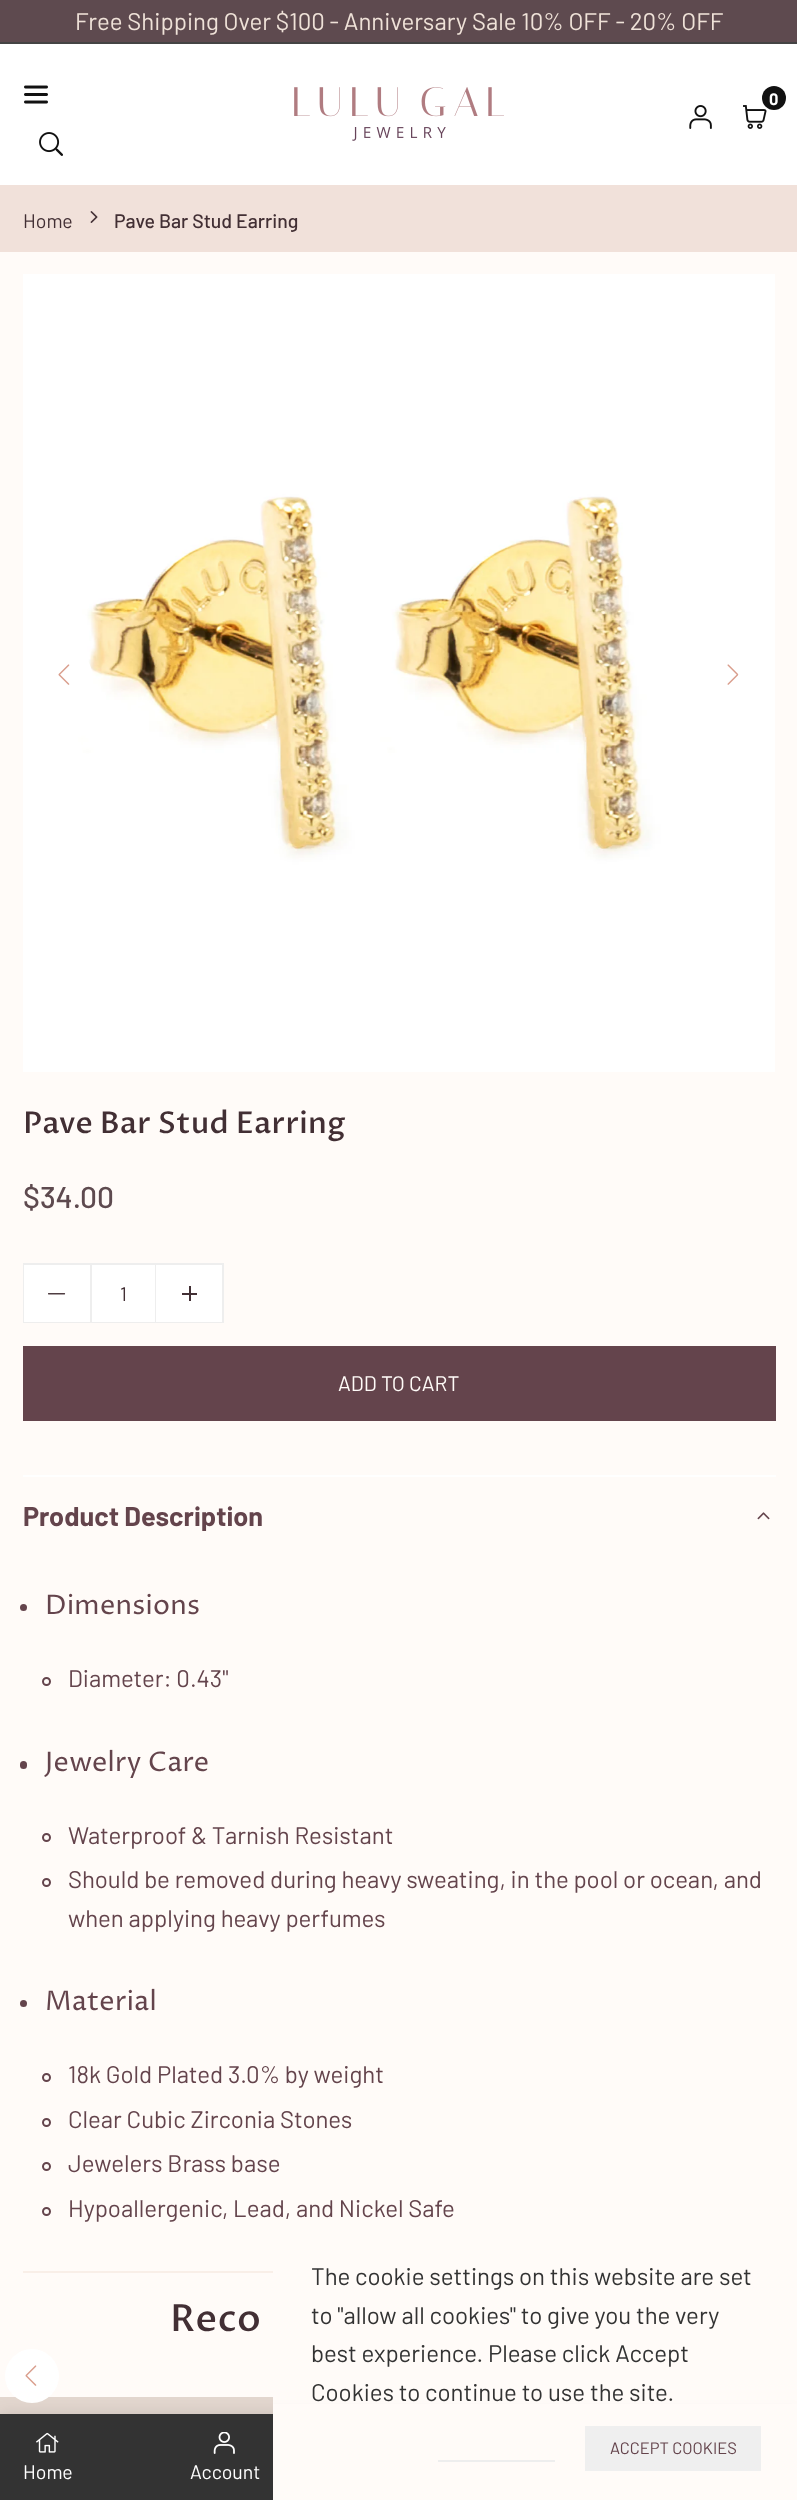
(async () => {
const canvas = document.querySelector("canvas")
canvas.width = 797
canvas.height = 2500
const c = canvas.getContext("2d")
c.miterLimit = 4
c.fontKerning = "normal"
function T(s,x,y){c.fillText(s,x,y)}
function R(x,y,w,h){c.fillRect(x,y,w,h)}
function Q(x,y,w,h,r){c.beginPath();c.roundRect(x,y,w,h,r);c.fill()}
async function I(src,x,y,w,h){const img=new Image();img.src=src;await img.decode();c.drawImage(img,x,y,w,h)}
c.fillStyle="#fffbf8"
R(0,0,797,2500)
c.fillStyle="#5e4a4f"
R(0,0,797,42)
c.fillStyle="#444"
R(0,42,797,2)
c.font="24px Barlow"
c.fillStyle="#efe2d8"
T("Free Shipping Over $100 - Anniversary Sale 10% OFF - 20% OFF",75,30)
c.fillStyle="#fff"
R(0,44,797,141)
await I("1.png",24,85,24,19)
await I("2.png",39,132,24,24)
await I("3.png",294,87,210,54)
await I("4.png",743,105,24,24)
c.fillStyle="#111"
c.beginPath()
c.arc(774,98,12,0,7)
c.fill()
c.font="bold 16.5px Barlow"
c.fillStyle="#fff"
T("0",769,105)
await I("5.png",689,105,23,24)
c.fillStyle="#f1e1da"
R(0,185,797,67)
c.font="19.5px Barlow"
c.fillStyle="#422f34"
T("Home",23,228)
await I("6.png",90,211,8,12)
c.font="500 19.5px Barlow"
T("Pave Bar Stud Earring",114,228)
await I("7.png",23,274,752,798)
c.fillStyle="#fff"
c.beginPath()
c.arc(65,675,27,0,7)
c.fill()
await I("8.png",58,664,12,21)
await I("9.png",727,664,12,21)
c.letterSpacing="0.3px"
c.font="500 30px Proza Libre"
c.fillStyle="#422f34"
T("Pave Bar Stud Earring",23,1133)
c.letterSpacing="0px"
c.font="500 30px Barlow"
c.fillStyle="#5e4a4f"
T("$34.00",23,1208)
c.strokeStyle="#eee"
c.lineWidth=2
c.strokeRect(24,1264,199,58)
c.fillStyle="#fff"
R(24,1265,66,57)
await I("10.png",48,1293,18,2)
R(92,1265,63,57)
c.fillStyle="#eee"
R(155,1265,1,57)
R(90,1265,2,57)
c.font="19.5px Barlow"
c.fillStyle="#422f34"
T("1",120,1301)
c.fillStyle="#fff"
R(156,1265,66,57)
c.fillStyle="#422f34"
R(182,1293,15,2)
R(189,1286,2,15)
c.fillStyle="#64444c"
R(23,1346,753,75)
c.font="21px Barlow"
c.fillStyle="#fffbf8"
T("ADD TO CART",338,1391)
c.fillStyle="#fff"
R(23,1475,753,2)
c.fillStyle="#f9efe8"
R(23,2271,250,2)
c.font="bold 27px Barlow"
c.fillStyle="#64444c"
T("Product Description",23,1526)
await I("11.png",757,1512,13,8)
c.beginPath()
c.arc(23.5,1607.5,3.5,0,7)
c.fill()
c.letterSpacing="0.25px"
c.font="27px Proza Libre"
T("Dimensions",45,1614)
c.beginPath()
c.arc(46.5,1681.5,3.5,0,7)
c.strokeStyle="#64444c"
c.stroke()
c.letterSpacing="0px"
c.font="24px Barlow"
T("Diameter: 0.43\"",68,1687)
Q(20,1761,7,8,3.5)
c.letterSpacing="0.25px"
c.font="27px Proza Libre"
T("Jewelry Care",45,1771)
c.beginPath()
c.arc(46.5,1837.5,3.5,0,7)
c.stroke()
c.letterSpacing="0px"
c.font="24px Barlow"
T("Waterproof & Tarnish Resistant",68,1844)
c.beginPath()
c.arc(46.5,1882.5,3.5,0,7)
c.stroke()
T("Should be removed during heavy sweating, in the pool or ocean, and",68,1888)
T("when applying heavy perfumes",68,1927)
c.beginPath()
c.arc(23.5,2003.5,3.5,0,7)
c.fill()
c.letterSpacing="0.25px"
c.font="27px Proza Libre"
T("Material",45,2010)
c.beginPath()
c.arc(46.5,2077.5,3.5,0,7)
c.stroke()
c.letterSpacing="0px"
c.font="24px Barlow"
T("18k Gold Plated 3.0% by weight",68,2083)
c.beginPath()
c.arc(46.5,2122.5,3.5,0,7)
c.stroke()
T("Clear Cubic Zirconia Stones",68,2128)
c.beginPath()
c.arc(46.5,2166.5,3.5,0,7)
c.stroke()
T("Jewelers Brass base",68,2172)
c.beginPath()
c.arc(46.5,2211.5,3.5,0,7)
c.stroke()
T("Hypoallergenic, Lead, and Nickel Safe",68,2217)
c.letterSpacing="0.5px"
c.font="500 37.5px Proza Libre"
c.fillStyle="#422f34"
T("Reco",170,2331)
c.fillStyle="#e2d6ce"
R(0,2397,273,17)
c.fillStyle="#fff"
c.beginPath()
c.arc(32,2376,27,0,7)
c.fill()
await I("8.png",25,2365,12,21)
c.fillStyle="#0000001a"
c.filter="blur(7.5px)"
c.beginPath()
c.rect(0,2414,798,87)
c.fill()
c.filter="none"
c.fillStyle="#fffbf8"
R(273,2404,524,96)
c.letterSpacing="0px"
c.font="24px Barlow"
c.fillStyle="#333"
T("The cookie settings on this website are set",311,2285)
T("to \"allow all cookies\" to give you the very",311,2324)
T("best experience. Please click Accept",311,2362)
T("Cookies to continue to use the site.",311,2401)
c.fillStyle="#efefef"
R(585,2426,176,45)
c.font="16.5px Barlow"
c.fillStyle="#64444c"
T("ACCEPT COOKIES",610,2454)
c.fillStyle="#eee"
R(438,2460,117,2)
c.fillStyle="#333"
R(0,2414,273,86)
await I("12.png",36,2432,23,21)
c.font="19.5px Barlow"
c.fillStyle="#fff"
T("Home",23,2479)
await I("13.png",213,2432,22,22)
T("Account",190,2479)
})()
